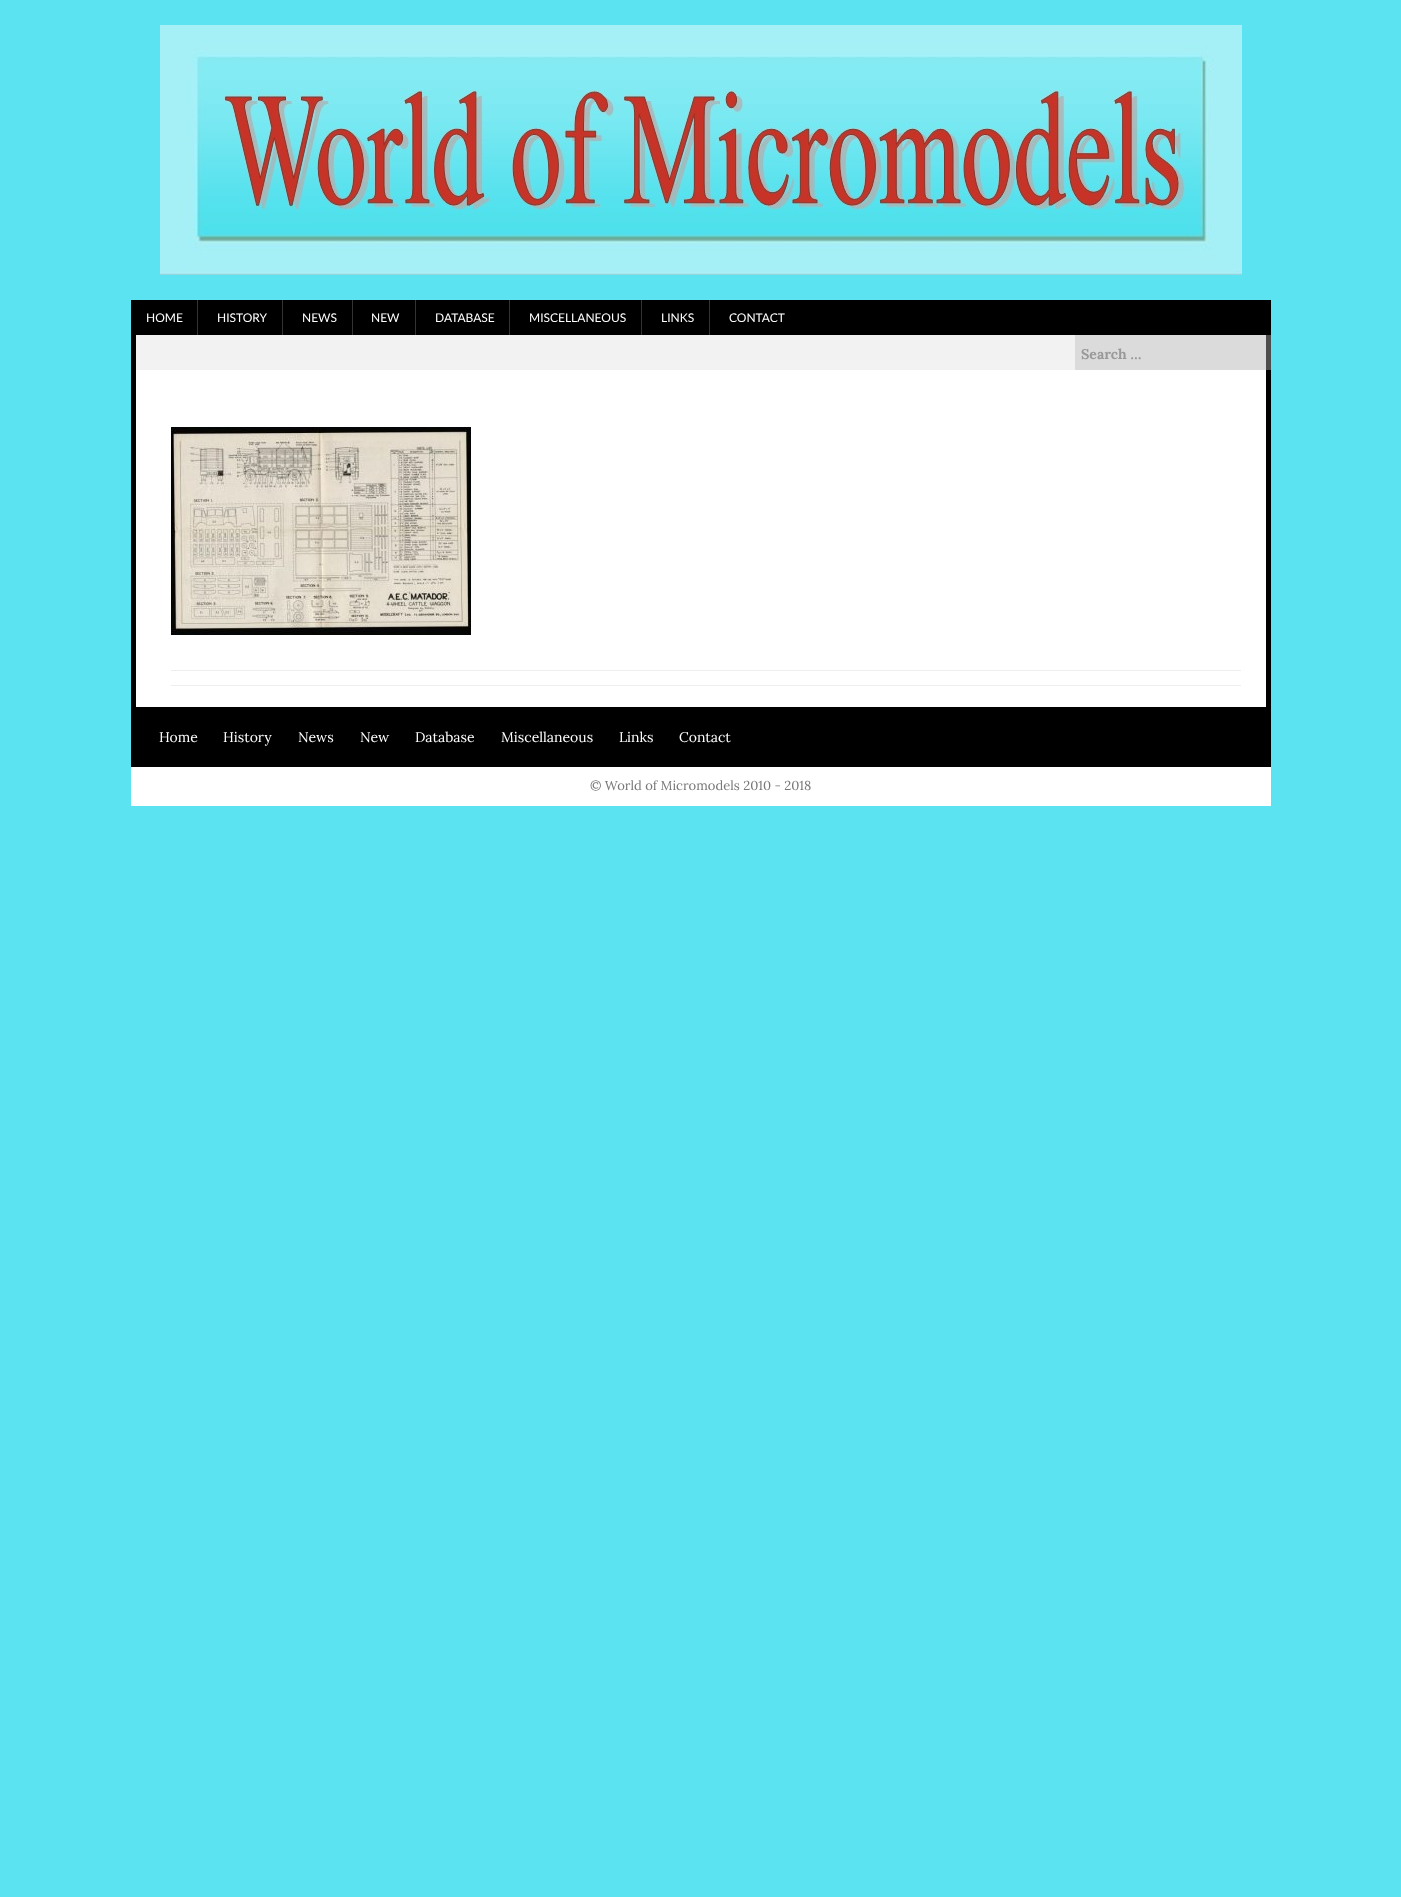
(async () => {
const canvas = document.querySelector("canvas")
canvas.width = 1401
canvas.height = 1897
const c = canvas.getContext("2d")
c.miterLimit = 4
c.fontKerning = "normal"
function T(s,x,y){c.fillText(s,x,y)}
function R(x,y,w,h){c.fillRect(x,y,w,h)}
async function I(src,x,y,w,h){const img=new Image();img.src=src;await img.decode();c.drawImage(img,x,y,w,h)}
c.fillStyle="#5ce3f2"
R(0,0,1401,1897)
await I("1.png",160,25,1082,250)
c.fillStyle="#000"
R(131,300,1140,35)
c.fillStyle="#333"
R(197,300,1,35)
c.font="12px Lato"
c.fillStyle="#fff"
T("HOME",146,322)
c.fillStyle="#333"
R(282,300,1,35)
c.fillStyle="#fff"
T("HISTORY",217,322)
c.fillStyle="#333"
R(352,300,1,35)
c.fillStyle="#fff"
T("NEWS",302,322)
c.fillStyle="#333"
R(415,300,1,35)
c.fillStyle="#fff"
T("NEW",371,322)
c.fillStyle="#333"
R(509,300,1,35)
c.fillStyle="#fff"
T("DATABASE",435,322)
c.fillStyle="#333"
R(641,300,1,35)
c.fillStyle="#fff"
T("MISCELLANEOUS",529,322)
c.fillStyle="#333"
R(709,300,1,35)
c.fillStyle="#fff"
T("LINKS",661,322)
T("CONTACT",729,322)
c.fillStyle="#f2f2f2"
R(136,335,939,35)
c.fillStyle="#4d4d4d"
R(1266,335,5,35)
c.fillStyle="#000"
R(131,335,5,372)
c.fillStyle="#dbdbdb"
R(1075,335,191,35)
c.font="bold 14px Lora"
c.fillStyle="#999"
T("Search …",1081,359)
c.fillStyle="#fff"
R(136,370,1130,337)
c.fillStyle="#000"
R(1266,370,5,337)
await I("2.png",171,427,300,208)
c.fillStyle="#eee"
R(171,670,1070,1)
R(171,685,1070,1)
c.fillStyle="#000"
R(131,707,1140,60)
c.font="14px Lora"
c.fillStyle="#fff"
T("Home",159,742)
T("History",223,742)
T("News",298,742)
T("New",360,742)
T("Database",415,742)
T("Miscellaneous",501,742)
T("Links",619,742)
T("Contact",679,742)
R(131,767,1140,39)
c.font="13px Lora"
c.fillStyle="#777"
T("© World of Micromodels 2010 - 2018",590,790)
})()
